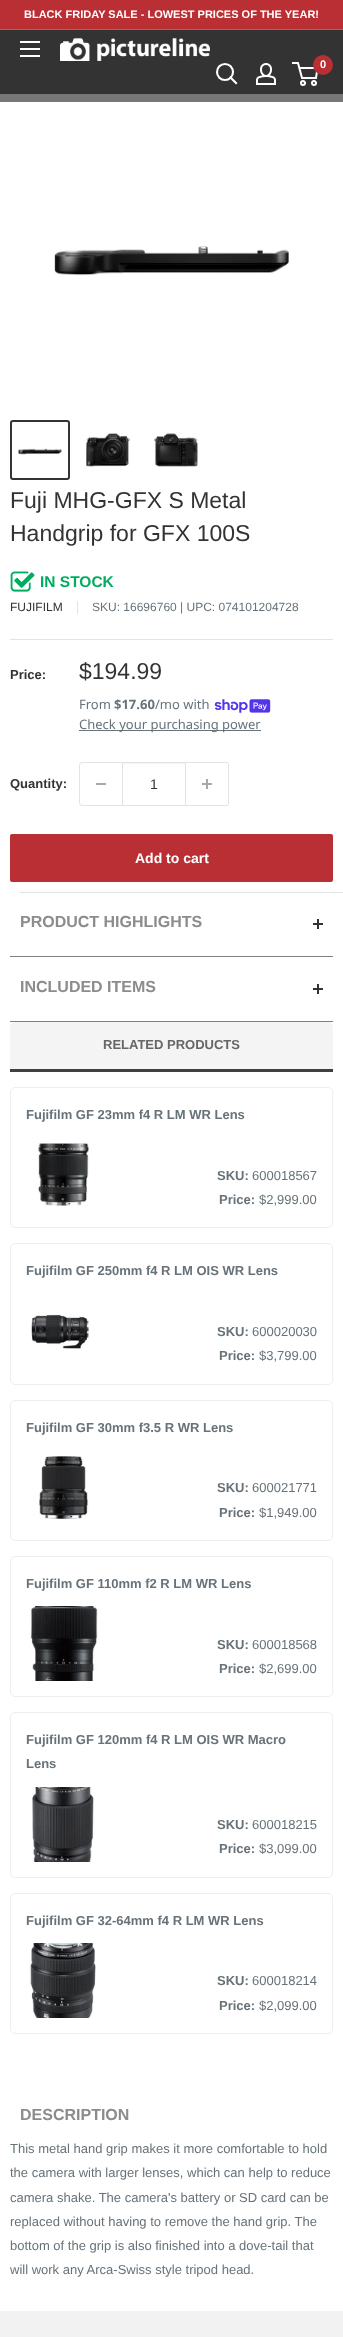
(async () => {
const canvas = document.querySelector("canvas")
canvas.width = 343
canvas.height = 2337
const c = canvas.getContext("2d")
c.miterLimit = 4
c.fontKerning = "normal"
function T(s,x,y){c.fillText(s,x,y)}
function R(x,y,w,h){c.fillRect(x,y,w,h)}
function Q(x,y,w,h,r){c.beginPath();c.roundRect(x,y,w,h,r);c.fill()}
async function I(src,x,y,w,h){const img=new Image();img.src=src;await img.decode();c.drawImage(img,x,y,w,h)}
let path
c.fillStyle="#fff"
R(0,0,343,2337)
c.fillStyle="#ba2f34"
R(0,0,343,29)
c.fillStyle="#ba595d"
R(0,29,343,1)
c.font="bold 11px Liberation Sans"
c.fillStyle="#fff"
T("BLACK FRIDAY SALE - LOWEST PRICES OF THE YEAR!",24,18)
c.fillStyle="#333"
R(0,30,343,64)
await I("1.png",20,41,20,16)
await I("2.png",60,38,150,23)
path = new Path2D("M236 83l-5.5-5.5")
c.strokeStyle="#fff"
c.lineWidth=2.1
c.lineCap="square"
c.stroke(path)
c.beginPath()
c.arc(225,72,8,0,7)
c.stroke()
await I("3.png",256,63,20,22)
c.beginPath()
c.arc(303,83,2,0,7)
c.lineWidth=2
c.stroke()
c.beginPath()
c.arc(314,83,2,0,7)
c.stroke()
path = new Path2D("M299.5 68h18l-1.5 10h-14l-4-15h-6")
c.lineCap="butt"
c.stroke(path)
c.fillStyle="#ba2f34"
c.beginPath()
c.arc(323,65,10,0,7)
c.fill()
c.fillStyle="#fff"
T("0",320,68)
c.fillStyle="#777"
R(0,94,343,8)
await I("4.png",54,246,235,30)
c.beginPath()
c.roundRect(11,421,58,58,2)
c.strokeStyle="#333"
c.stroke()
await I("5.png",18,448,44,7)
await I("6.png",86,433,44,34)
await I("7.png",154,433,44,34)
c.font="23px Liberation Sans"
c.fillStyle="#333"
T("Fuji MHG-GFX S Metal",10,508)
T("Handgrip for GFX 100S",10,541)
await I("8.png",10,571,25,21)
c.font="bold 15.5px Liberation Sans"
c.fillStyle="#00ad60"
T("IN STOCK",40,587)
c.font="12px Liberation Sans"
c.fillStyle="#333"
T("FUJIFILM",10,611)
c.fillStyle="#e1e3e4"
R(77,601,1,13)
c.fillStyle="#677279"
T("SKU: 16696760 | UPC: 074101204728",92,611)
c.fillStyle="#e1e3e4"
R(10,639,323,1)
c.font="bold 13px Liberation Sans"
c.fillStyle="#333"
T("Price:",10,679)
c.font="23px Liberation Sans"
T("$194.99",79,679)
c.font="13px Noto Sans"
c.fillStyle="#677279"
T("From",79,709)
c.font="bold 13px Noto Sans"
T("$17.60",114,709)
c.font="13px Noto Sans"
T("/mo with",155,709)
await I("9.png",214,699,57,14)
R(79,730,182,1)
T("Check your purchasing power",79,729)
c.font="bold 13px Liberation Sans"
c.fillStyle="#333"
T("Quantity:",10,788)
c.beginPath()
c.roundRect(79.5,762.5,149,43,2.5)
c.strokeStyle="#e1e3e4"
c.lineWidth=1
c.stroke()
c.fillStyle="#a4aaaf"
R(96,783,10,2)
c.fillStyle="#f3f4f4"
R(123,763,62,1)
c.fillStyle="#e1e3e4"
R(185,763,1,42)
R(122,763,1,42)
c.font="14px Liberation Sans"
c.fillStyle="#333"
T("1",150,789)
await I("10.png",202,779,10,10)
c.fillStyle="#ba2f34"
Q(10,834,323,48,2)
c.font="bold 14px Liberation Sans"
c.fillStyle="#fff"
T("Add to cart",135,863)
c.fillStyle="#e1e3e4"
R(20,892,323,1)
c.fillStyle="#808080"
R(10,956,323,1)
c.font="bold 16px Liberation Sans"
c.fillStyle="#8c8c8c"
T("PRODUCT HIGHLIGHTS",20,927)
c.fillStyle="#333"
R(317,919,2,10)
R(313,923,10,2)
c.fillStyle="#808080"
R(10,1021,323,1)
c.fillStyle="#8c8c8c"
T("INCLUDED ITEMS",20,992)
c.fillStyle="#333"
R(317,984,2,10)
R(313,988,10,2)
c.fillStyle="#f4f4f4"
c.beginPath()
c.roundRect(10,1022,323,50,[5,5,0,0])
c.fill()
c.fillStyle="#404040"
R(10,1069,323,3)
c.font="bold 13px Liberation Sans"
c.fillStyle="#666"
T("RELATED PRODUCTS",103,1049)
c.beginPath()
c.roundRect(10.5,1087.5,322,140,4.5)
c.strokeStyle="#eee"
c.stroke()
c.fillStyle="#677279"
T("Fujifilm GF 23mm f4 R LM WR Lens",26,1119)
await I("11.png",38,1143,51,63)
T("SKU:",217,1180)
c.font="13px Liberation Sans"
T("600018567",252,1180)
c.font="bold 13px Liberation Sans"
T("Price:",219,1204)
c.font="13px Liberation Sans"
T("$2,999.00",259,1204)
c.beginPath()
c.roundRect(10.5,1243.5,322,141,4.5)
c.stroke()
c.font="bold 13px Liberation Sans"
T("Fujifilm GF 250mm f4 R LM OIS WR Lens",26,1275)
await I("12.png",31,1314,58,36)
T("SKU:",217,1336)
c.font="13px Liberation Sans"
T("600020030",252,1336)
c.font="bold 13px Liberation Sans"
T("Price:",219,1360)
c.font="13px Liberation Sans"
T("$3,799.00",259,1360)
c.beginPath()
c.roundRect(10.5,1400.5,322,140,4.5)
c.stroke()
c.font="bold 13px Liberation Sans"
T("Fujifilm GF 30mm f3.5 R WR Lens",26,1432)
await I("13.png",38,1456,51,63)
T("SKU:",217,1492)
c.font="13px Liberation Sans"
T("600021771",252,1492)
c.font="bold 13px Liberation Sans"
T("Price:",219,1517)
c.font="13px Liberation Sans"
T("$1,949.00",259,1517)
c.beginPath()
c.roundRect(10.5,1556.5,322,140,4.5)
c.stroke()
c.font="bold 13px Liberation Sans"
T("Fujifilm GF 110mm f2 R LM WR Lens",26,1588)
await I("14.png",29,1606,69,75)
T("SKU:",217,1649)
c.font="13px Liberation Sans"
T("600018568",252,1649)
c.font="bold 13px Liberation Sans"
T("Price:",219,1673)
c.font="13px Liberation Sans"
T("$2,699.00",259,1673)
c.beginPath()
c.roundRect(10.5,1712.5,322,165,4.5)
c.stroke()
c.font="bold 13px Liberation Sans"
T("Fujifilm GF 120mm f4 R LM OIS WR Macro",26,1744)
T("Lens",26,1768)
await I("15.png",32,1787,63,75)
T("SKU:",217,1829)
c.font="13px Liberation Sans"
T("600018215",252,1829)
c.font="bold 13px Liberation Sans"
T("Price:",219,1853)
c.font="13px Liberation Sans"
T("$3,099.00",259,1853)
c.beginPath()
c.roundRect(10.5,1893.5,322,140,4.5)
c.stroke()
c.font="bold 13px Liberation Sans"
T("Fujifilm GF 32-64mm f4 R LM WR Lens",26,1925)
await I("16.png",29,1943,68,75)
T("SKU:",217,1985)
c.font="13px Liberation Sans"
T("600018214",252,1985)
c.font="bold 13px Liberation Sans"
T("Price:",219,2010)
c.font="13px Liberation Sans"
T("$2,099.00",259,2010)
c.font="bold 16px Liberation Sans"
c.fillStyle="#8c8c8c"
T("DESCRIPTION",20,2120)
c.font="13px Liberation Sans"
c.fillStyle="#677279"
T("This metal hand grip makes it more comfortable to hold",10,2153)
T("the camera with larger lenses, which can help to reduce",10,2177)
T("camera shake. The camera's battery or SD card can be",10,2202)
T("replaced without having to remove the hand grip. The",10,2226)
T("bottom of the grip is also finished into a dove-tail that",10,2250)
T("will work any Arca-Swiss style tripod head.",10,2274)
c.fillStyle="#f2f2f2"
R(0,2311,343,26)
})()
